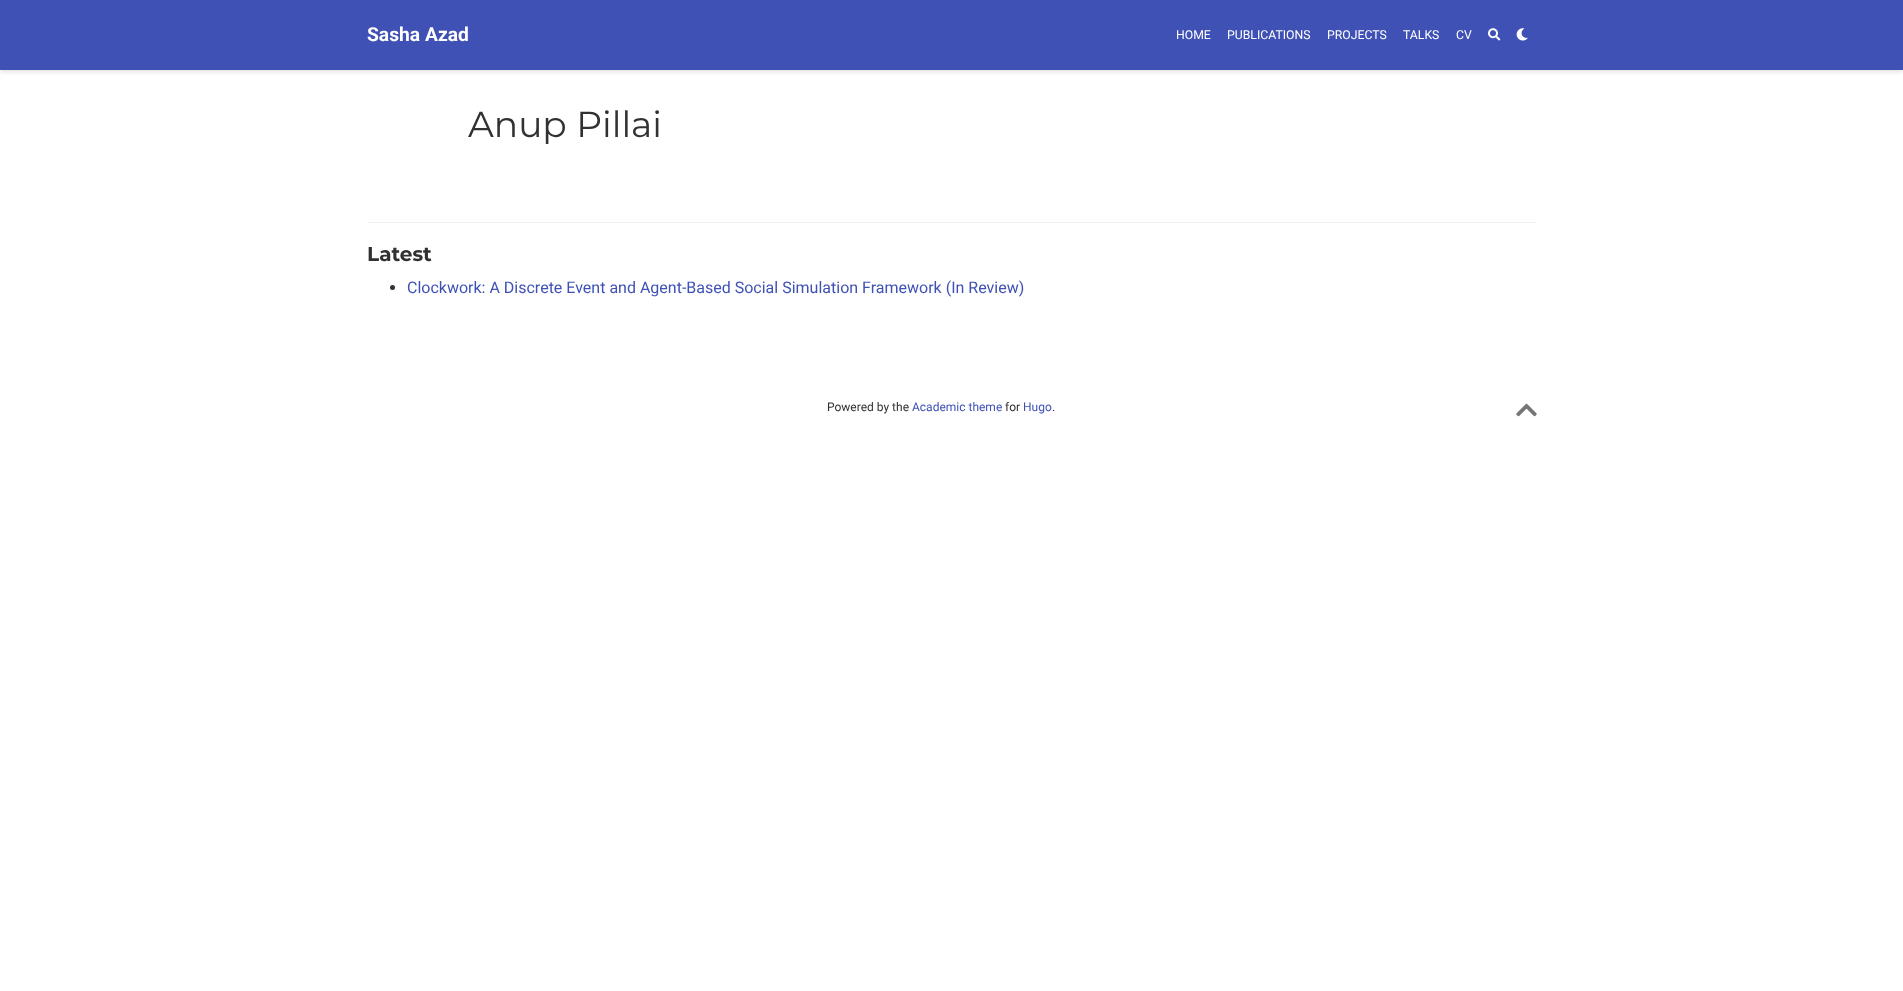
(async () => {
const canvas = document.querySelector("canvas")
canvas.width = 1903
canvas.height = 991
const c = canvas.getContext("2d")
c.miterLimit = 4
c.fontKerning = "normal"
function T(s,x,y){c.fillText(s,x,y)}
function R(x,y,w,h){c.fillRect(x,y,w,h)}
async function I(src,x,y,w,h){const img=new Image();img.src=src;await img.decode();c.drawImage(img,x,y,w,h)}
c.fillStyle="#fff"
R(0,0,1903,991)
c.fillStyle="#0000001c"
c.filter="blur(2px)"
c.beginPath()
c.rect(0,2,1903,70)
c.fill()
c.filter="none"
c.fillStyle="#3f51b5"
R(0,0,1903,70)
c.font="bold 19.25px Roboto"
c.fillStyle="#fff"
T("Sasha Azad",367,41)
c.font="12.25px Roboto"
T("HOME",1176,39)
T("PUBLICATIONS",1227,39)
T("PROJECTS",1327,39)
T("TALKS",1403,39)
T("CV",1456,39)
await I("1.png",1488,28,13,13)
await I("2.png",1516,28,12,13)
c.font="36px Montserrat"
c.fillStyle="#313131"
T("Anup Pillai",468,137)
c.fillStyle="#f2f2f2"
R(367,222,1170,1)
c.font="bold 20px Montserrat"
c.fillStyle="#313131"
T("Latest",367,261)
c.fillStyle="#333"
c.beginPath()
c.arc(392.5,287.5,2.5,0,7)
c.fill()
c.font="16px Roboto"
c.fillStyle="#3f51b5"
T("Clockwork: A Discrete Event and Agent-Based Social Simulation Framework (In Review)",407,293)
c.font="12px Roboto"
c.fillStyle="#313131"
T("Powered by the",827,411)
c.fillStyle="#3f51b5"
T("Academic theme",912,411)
c.fillStyle="#313131"
T("for",1005,411)
c.fillStyle="#3f51b5"
T("Hugo",1023,411)
c.fillStyle="#313131"
T(".",1052,411)
await I("3.png",1516,403,21,14)
})()
